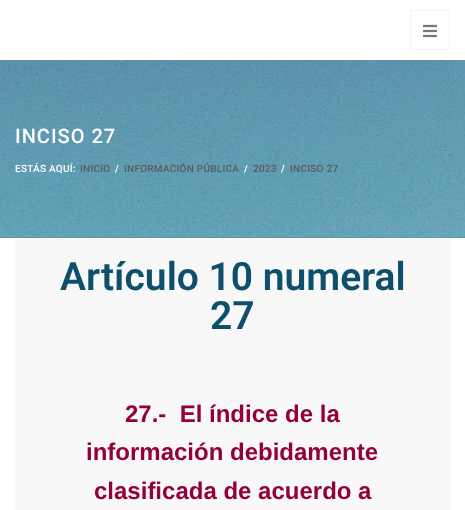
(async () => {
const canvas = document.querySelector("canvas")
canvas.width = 465
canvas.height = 510
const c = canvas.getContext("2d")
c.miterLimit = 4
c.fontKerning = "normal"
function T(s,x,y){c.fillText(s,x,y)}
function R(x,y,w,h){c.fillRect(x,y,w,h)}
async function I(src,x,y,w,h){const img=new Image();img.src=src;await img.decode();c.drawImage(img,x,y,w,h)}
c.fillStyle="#fff"
R(0,0,465,510)
c.strokeStyle="#f6f3f3"
c.strokeRect(410.5,10.5,39,39)
await I("1.png",423,24,14,14)
await I("2.png",0,60,465,178)
c.fillStyle="#0000000d"
R(0,237,465,1)
c.letterSpacing="1px"
c.font="500 20px Roboto"
c.fillStyle="#fff"
T("INCISO 27",15,143)
c.letterSpacing="0.25px"
c.font="500 10px Roboto"
T("ESTÁS AQUÍ:",15,172)
c.fillStyle="#5b5b5b"
T("INICIO",80,172)
c.font="bold 10px Roboto"
c.fillStyle="#fff"
T("/",115,172)
c.font="500 10px Roboto"
c.fillStyle="#5b5b5b"
T("INFORMACIÓN PÚBLICA",124,172)
c.font="bold 10px Roboto"
c.fillStyle="#fff"
T("/",244,172)
c.font="500 10px Roboto"
c.fillStyle="#5b5b5b"
T("2023",253,172)
c.font="bold 10px Roboto"
c.fillStyle="#fff"
T("/",281,172)
c.font="500 10px Roboto"
c.fillStyle="#5b5b5b"
T("INCISO 27",290,172)
c.fillStyle="#f8f8f8"
R(15,238,435,272)
c.letterSpacing="0px"
c.font="600 39px Roboto"
c.fillStyle="#0e506c"
T("Artículo 10 numeral",60,290)
T("27",210,329)
c.font="bold 24px Liberation Sans"
c.fillStyle="#93003c"
T("27.-  El índice de la",125,422)
T("información debidamente",86,460)
T("clasificada de acuerdo a",94,499)
})()
